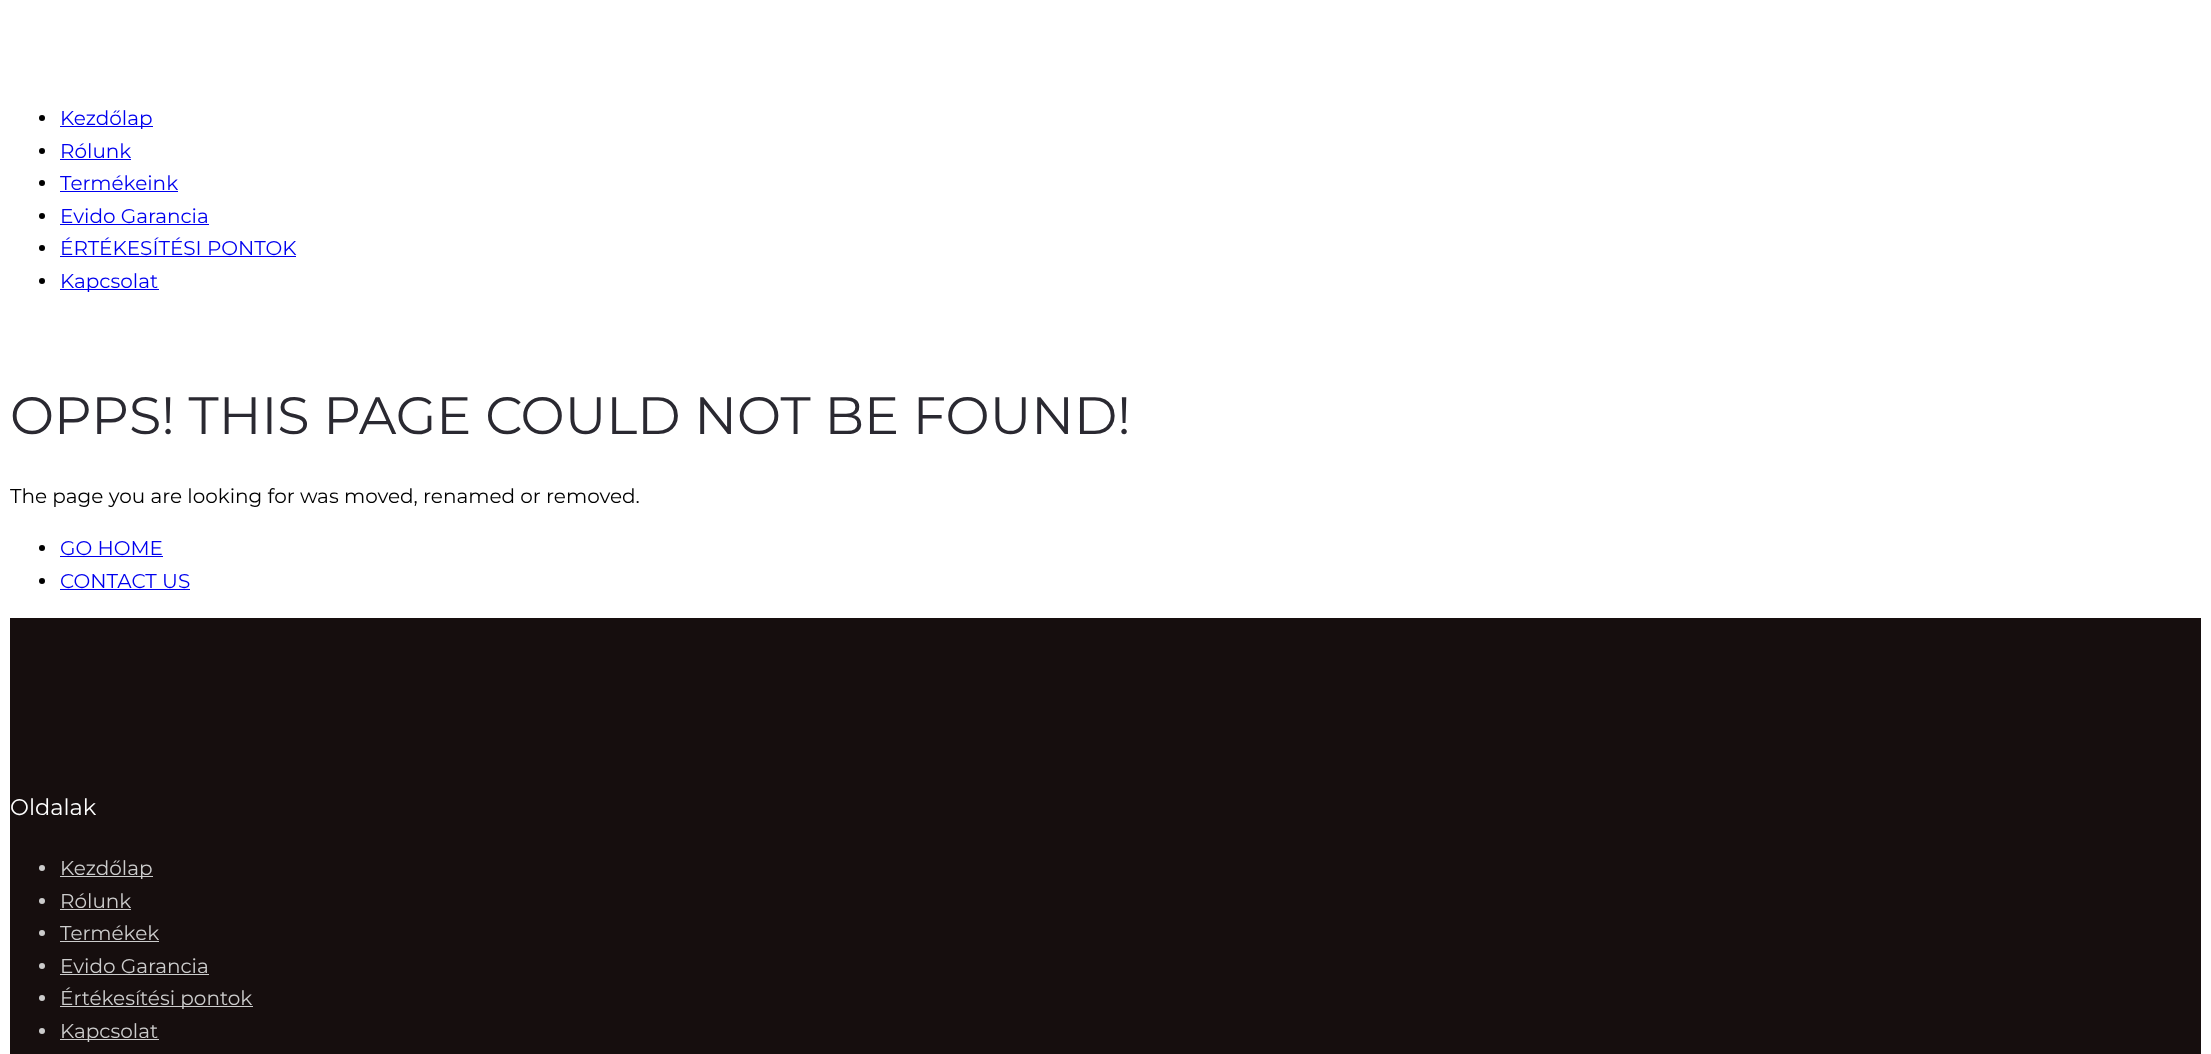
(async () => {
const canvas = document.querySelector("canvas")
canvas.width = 2211
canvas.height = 1054
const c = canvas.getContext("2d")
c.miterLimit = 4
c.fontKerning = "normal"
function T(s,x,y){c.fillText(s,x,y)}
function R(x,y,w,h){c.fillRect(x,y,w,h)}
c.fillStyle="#fff"
R(0,0,2211,1054)
c.fillStyle="#000"
c.beginPath()
c.arc(42,118,3,0,7)
c.fill()
c.fillStyle="#00e"
R(60,126,93,1)
c.font="20px Montserrat"
T("Kezdőlap",60,125)
c.fillStyle="#000"
c.beginPath()
c.arc(42,151,3,0,7)
c.fill()
c.fillStyle="#00e"
T("Rólunk",60,158)
R(60,159,71,1)
c.fillStyle="#000"
c.beginPath()
c.arc(42,183,3,0,7)
c.fill()
c.fillStyle="#00e"
T("Termékeink",60,190)
R(60,191,118,1)
c.fillStyle="#000"
c.beginPath()
c.arc(42,216,3,0,7)
c.fill()
c.fillStyle="#00e"
T("Evido Garancia",60,223)
R(60,224,149,1)
c.fillStyle="#000"
c.beginPath()
c.arc(42,248,3,0,7)
c.fill()
c.fillStyle="#00e"
T("ÉRTÉKESÍTÉSI PONTOK",60,255)
R(60,256,236,1)
c.fillStyle="#000"
c.beginPath()
c.arc(42,281,3,0,7)
c.fill()
c.fillStyle="#00e"
R(60,289,99,1)
T("Kapcsolat",60,288)
c.font="52.5px Montserrat"
c.fillStyle="#2a2931"
T("OPPS! THIS PAGE COULD NOT BE FOUND!",10,434)
c.font="20px Montserrat"
c.fillStyle="#000"
T("The page you are looking for was moved, renamed or removed.",10,503)
c.beginPath()
c.arc(42,548,3,0,7)
c.fill()
c.fillStyle="#00e"
T("GO HOME",60,555)
R(60,556,103,1)
c.fillStyle="#000"
c.beginPath()
c.arc(42,581,3,0,7)
c.fill()
c.fillStyle="#00e"
T("CONTACT US",60,588)
R(60,589,130,1)
c.fillStyle="#160e0e"
R(10,618,2191,436)
c.font="22.5px Montserrat"
c.fillStyle="#fff"
T("Oldalak",10,815)
c.fillStyle="#ccc"
c.beginPath()
c.arc(42,868,3,0,7)
c.fill()
R(60,876,93,1)
c.font="20px Montserrat"
T("Kezdőlap",60,875)
c.beginPath()
c.arc(42,901,3,0,7)
c.fill()
T("Rólunk",60,908)
R(60,909,71,1)
c.beginPath()
c.arc(42,933,3,0,7)
c.fill()
T("Termékek",60,940)
R(60,941,99,1)
c.beginPath()
c.arc(42,966,3,0,7)
c.fill()
T("Evido Garancia",60,973)
R(60,974,149,1)
c.beginPath()
c.arc(42,998,3,0,7)
c.fill()
R(60,1006,193,1)
T("Értékesítési pontok",60,1005)
c.beginPath()
c.arc(42,1031,3,0,7)
c.fill()
R(60,1039,99,1)
T("Kapcsolat",60,1038)
})()
